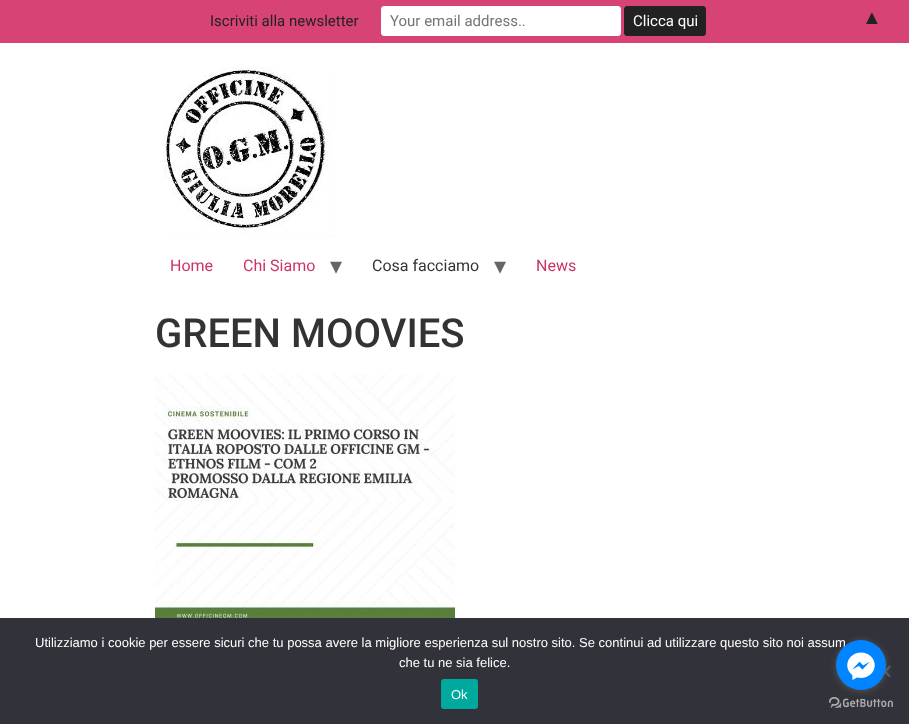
(async () => {
const canvas = document.querySelector("canvas")
canvas.width = 909
canvas.height = 724
const c = canvas.getContext("2d")
c.miterLimit = 4
c.fontKerning = "normal"
function T(s,x,y){c.fillText(s,x,y)}
function R(x,y,w,h){c.fillRect(x,y,w,h)}
function Q(x,y,w,h,r){c.beginPath();c.roundRect(x,y,w,h,r);c.fill()}
async function I(src,x,y,w,h){const img=new Image();img.src=src;await img.decode();c.drawImage(img,x,y,w,h)}
let path
c.fillStyle="#fff"
R(0,0,909,724)
c.fillStyle="#d84375"
R(0,0,909,43)
c.font="15px Roboto"
c.fillStyle="#222"
T("Iscriviti alla newsletter",210,26)
c.fillStyle="#fff"
c.beginPath()
c.roundRect(381.5,6.5,239,29,2.5)
c.fill()
c.strokeStyle="#fff"
c.stroke()
c.fillStyle="#757575"
T("Your email address..",390,26)
c.fillStyle="#222"
c.beginPath()
c.roundRect(624.5,6.5,81,29,2.5)
c.fill()
c.strokeStyle="#222"
c.stroke()
c.fillStyle="#fff"
T("Clicca qui",633,26)
c.font="20px Liberation Sans"
c.fillStyle="#222"
T("▲",862,24)
await I("1.png",163,67,172,171)
c.font="16px Roboto"
c.fillStyle="#c36"
T("Home",170,271)
T("Chi Siamo",243,271)
c.font="24px DejaVu Sans"
c.fillStyle="#666"
T("▾",330,274)
c.font="16px Roboto"
c.fillStyle="#333"
T("Cosa facciamo",372,271)
c.font="24px DejaVu Sans"
c.fillStyle="#666"
T("▾",494,274)
c.font="16px Roboto"
c.fillStyle="#c36"
T("News",536,271)
c.font="500 40px Roboto"
c.fillStyle="#333"
T("GREEN MOOVIES",155,347)
await I("2.png",155,374,300,244)
c.fillStyle="#32323a"
R(0,618,909,106)
c.font="13px Liberation Sans"
c.fillStyle="#fff"
T("Utilizziamo i cookie per essere sicuri che tu possa avere la migliore esperienza sul nostro sito. Se continui ad utilizzare questo sito noi assum",35,647)
T("che tu ne sia felice.",399,667)
c.fillStyle="#59595d"
path = new Path2D("M889.5 665.5l1.5 1.5l-10.5 10.5l-1.5-1.5z")
c.fill(path)
path = new Path2D("M879 667l1.5-1.5l10.5 10.5l-1.5 1.5z")
c.fill(path)
c.fillStyle="#00a99d"
Q(441,679,37,30,3)
c.fillStyle="#fff"
T("Ok",451,699)
await I("4.png",829,697,64,11)
c.fillStyle="#88888866"
c.filter="blur(3.5px)"
c.beginPath()
c.roundRect(836,641,50,50,25)
c.fill()
c.filter="none"
c.fillStyle="#0084ff"
c.beginPath()
c.arc(861,665,25,0,7)
c.fill()
await I("3.png",847,652,28,28)
})()
